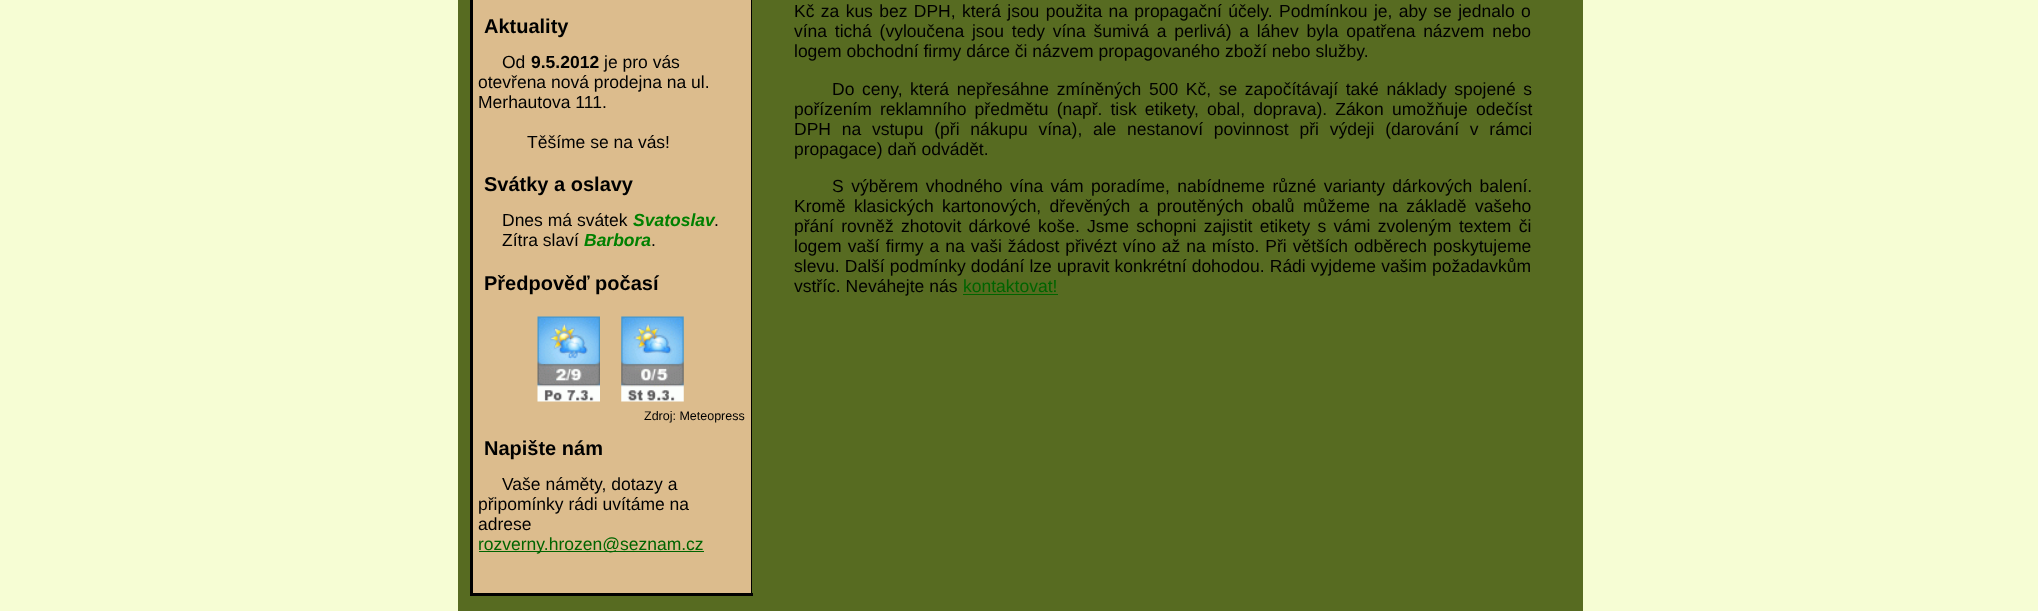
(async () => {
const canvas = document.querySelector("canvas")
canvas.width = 2038
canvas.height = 611
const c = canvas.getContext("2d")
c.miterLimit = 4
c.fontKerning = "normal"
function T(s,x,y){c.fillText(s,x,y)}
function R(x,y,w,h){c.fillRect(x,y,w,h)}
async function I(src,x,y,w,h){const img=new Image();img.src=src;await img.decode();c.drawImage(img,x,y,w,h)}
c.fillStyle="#f6fdd4"
R(0,0,2038,611)
c.fillStyle="#576b21"
R(458,0,1125,611)
c.fillStyle="#dcbc8d"
R(473,0,278,593)
c.fillStyle="#000"
R(751,0,1,595)
R(470,593,283,3)
R(470,0,3,595)
c.font="bold 20px Liberation Sans"
T("Aktuality",484,33)
c.font="17.5px Liberation Sans"
T("Od",502,68)
c.font="bold 17.5px Liberation Sans"
T("9.5.2012",531,68)
c.font="17.5px Liberation Sans"
T("je pro vás",604,68)
T("otevřena nová prodejna na ul.",478,88)
T("Merhautova 111.",478,108)
T("Těšíme se na vás!",527,148)
c.font="bold 20px Liberation Sans"
T("Svátky a oslavy",484,191)
c.font="17.5px Liberation Sans"
T("Dnes má svátek",502,226)
c.font="italic bold 17.5px Liberation Sans"
c.fillStyle="#008000"
T("Svatoslav",633,226)
c.font="17.5px Liberation Sans"
c.fillStyle="#000"
T(".",714,226)
T("Zítra slaví",502,246)
c.font="italic bold 17.5px Liberation Sans"
c.fillStyle="#008000"
T("Barbora",584,246)
c.font="17.5px Liberation Sans"
c.fillStyle="#000"
T(".",651,246)
c.font="bold 20px Liberation Sans"
T("Předpověď počasí",484,290)
await I("1.png",537,316,63,86)
await I("2.png",621,316,63,86)
c.font="12.5px Liberation Sans"
T("Zdroj: Meteopress",644,420)
c.font="bold 20px Liberation Sans"
T("Napište nám",484,455)
c.font="17.5px Liberation Sans"
T("Vaše náměty, dotazy a",502,490)
T("připomínky rádi uvítáme na",478,510)
T("adrese",478,530)
c.fillStyle="#006400"
R(479,551,225,1)
T("rozverny.hrozen@seznam.cz",478,550)
c.wordSpacing="1.5px"
c.fillStyle="#000"
T("Kč za kus bez DPH, která jsou použita na propagační účely. Podmínkou je, aby se jednalo o",794,17)
c.wordSpacing="2.9px"
T("vína tichá (vyloučena jsou tedy vína šumivá a perlivá) a láhev byla opatřena názvem nebo",794,37)
c.wordSpacing="0px"
T("logem obchodní firmy dárce či názvem propagovaného zboží nebo služby.",794,57)
c.wordSpacing="2.75px"
T("Do ceny, která nepřesáhne zmíněných 500 Kč, se započítávají také náklady spojené s",832,95)
c.wordSpacing="3.25px"
T("pořízením reklamního předmětu (např. tisk etikety, obal, doprava). Zákon umožňuje odečíst",794,115)
c.wordSpacing="5.9px"
T("DPH na vstupu (při nákupu vína), ale nestanoví povinnost při výdeji (darování v rámci",794,135)
c.wordSpacing="0px"
T("propagace) daň odvádět.",794,155)
c.wordSpacing="2.6px"
T("S výběrem vhodného vína vám poradíme, nabídneme různé varianty dárkových balení.",832,192)
c.wordSpacing="3.5px"
T("Kromě klasických kartonových, dřevěných a proutěných obalů můžeme na základě vašeho",794,212)
c.wordSpacing="2.4px"
T("přání rovněž zhotovit dárkové koše. Jsme schopni zajistit etikety s vámi zvoleným textem či",794,232)
c.wordSpacing="1.1px"
T("logem vaší firmy a na vaši žádost přivézt víno až na místo. Při větších odběrech poskytujeme",794,252)
c.wordSpacing="0.25px"
T("slevu. Další podmínky dodání lze upravit konkrétní dohodou. Rádi vyjdeme vašim požadavkům",794,272)
c.wordSpacing="0px"
T("vstříc. Neváhejte nás",794,292)
c.fillStyle="#006400"
T("kontaktovat!",963,292)
R(963,294,95,1)
})()
